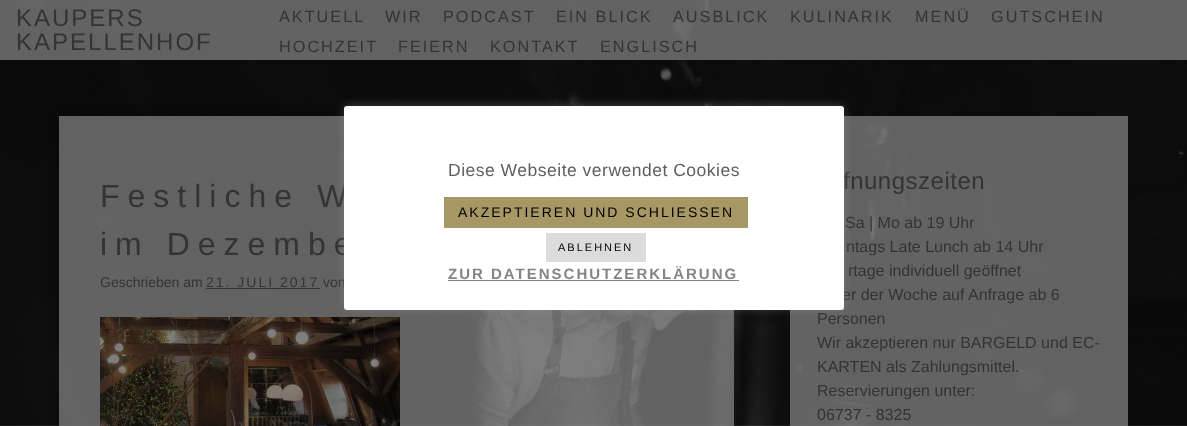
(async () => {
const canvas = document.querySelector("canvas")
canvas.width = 1187
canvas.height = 426
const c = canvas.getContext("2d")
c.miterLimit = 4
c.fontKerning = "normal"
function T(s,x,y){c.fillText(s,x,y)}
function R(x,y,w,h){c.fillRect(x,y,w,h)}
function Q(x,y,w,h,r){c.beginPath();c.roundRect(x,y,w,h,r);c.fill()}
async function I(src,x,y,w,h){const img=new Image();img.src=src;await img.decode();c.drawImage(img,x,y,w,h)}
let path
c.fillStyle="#fff"
R(0,0,1187,426)
await I("1.png",0,0,1187,426)
c.fillStyle="#808080bf"
R(0,0,1187,60)
c.letterSpacing="2px"
c.font="24px Liberation Sans"
c.fillStyle="#343434"
T("KAUPERS",16,26)
T("KAPELLENHOF",16,50)
c.font="16.25px Liberation Sans"
T("AKTUELL",279,22)
T("WIR",385,22)
T("PODCAST",443,22)
T("EIN BLICK",556,22)
T("AUSBLICK",673,22)
T("KULINARIK",790,22)
T("MENÜ",915,22)
T("GUTSCHEIN",991,22)
T("HOCHZEIT",279,52)
T("FEIERN",398,52)
T("KONTAKT",490,52)
T("ENGLISCH",600,52)
c.save()
path = new Path2D("M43 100h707v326h-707zm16 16h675v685h-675z")
c.clip(path,"evenodd")
c.fillStyle="#00000066"
c.filter="blur(5px)"
c.beginPath()
c.rect(59,116,675,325)
c.fill()
c.filter="none"
c.restore()
c.fillStyle="#808080bf"
R(59,116,675,310)
c.letterSpacing="8px"
c.font="32px Liberation Sans"
c.fillStyle="#343434"
T("Festliche W",100,207)
T("im Dezembe",100,255)
c.letterSpacing="0px"
c.font="14px Liberation Sans"
T("Geschrieben am",100,287)
c.letterSpacing="2px"
T("21. JULI 2017",206,287)
R(206,288,114,1)
c.letterSpacing="0px"
T("von",323,287)
await I("2.png",100,317,300,109)
c.fillStyle="#808080bf"
R(790,116,338,310)
c.letterSpacing="0.5px"
c.font="24px Liberation Sans"
c.fillStyle="#343434"
T("fnungszeiten",843,189)
c.letterSpacing="0px"
c.font="16px Liberation Sans"
T("Sa | Mo ab 19 Uhr",845,228)
T("ntags Late Lunch ab 14 Uhr",846,252)
T("rtage individuell geöffnet",848,276)
T("er der Woche auf Anfrage ab 6",842,300)
T("Personen",817,324)
T("Wir akzeptieren nur BARGELD und EC-",817,348)
T("KARTEN als Zahlungsmittel.",817,372)
T("Reservierungen unter:",817,396)
T("06737 - 8325",817,420)
c.fillStyle="#acabab4d"
c.filter="blur(5px)"
c.beginPath()
c.roundRect(344,105,500,204,3)
c.fill()
c.filter="none"
c.fillStyle="#fff"
Q(344,106,500,204,3)
c.letterSpacing="0.5px"
c.font="17.5px Liberation Sans"
c.fillStyle="#5e5e5e"
T("Diese Webseite verwendet Cookies",448,176)
c.fillStyle="#a69765"
R(444,197,304,31)
c.letterSpacing="2px"
c.font="14px Liberation Sans"
c.fillStyle="#000"
T("AKZEPTIEREN UND SCHLIESSEN",458,217)
c.fillStyle="#dbdbdb"
R(546,233,100,29)
c.font="11px Liberation Sans"
c.fillStyle="#000"
T("ABLEHNEN",558,251)
c.font="bold 15px Liberation Sans"
c.fillStyle="#848484"
T("ZUR DATENSCHUTZERKLÄRUNG",448,279)
R(448,280,291,1)
})()
